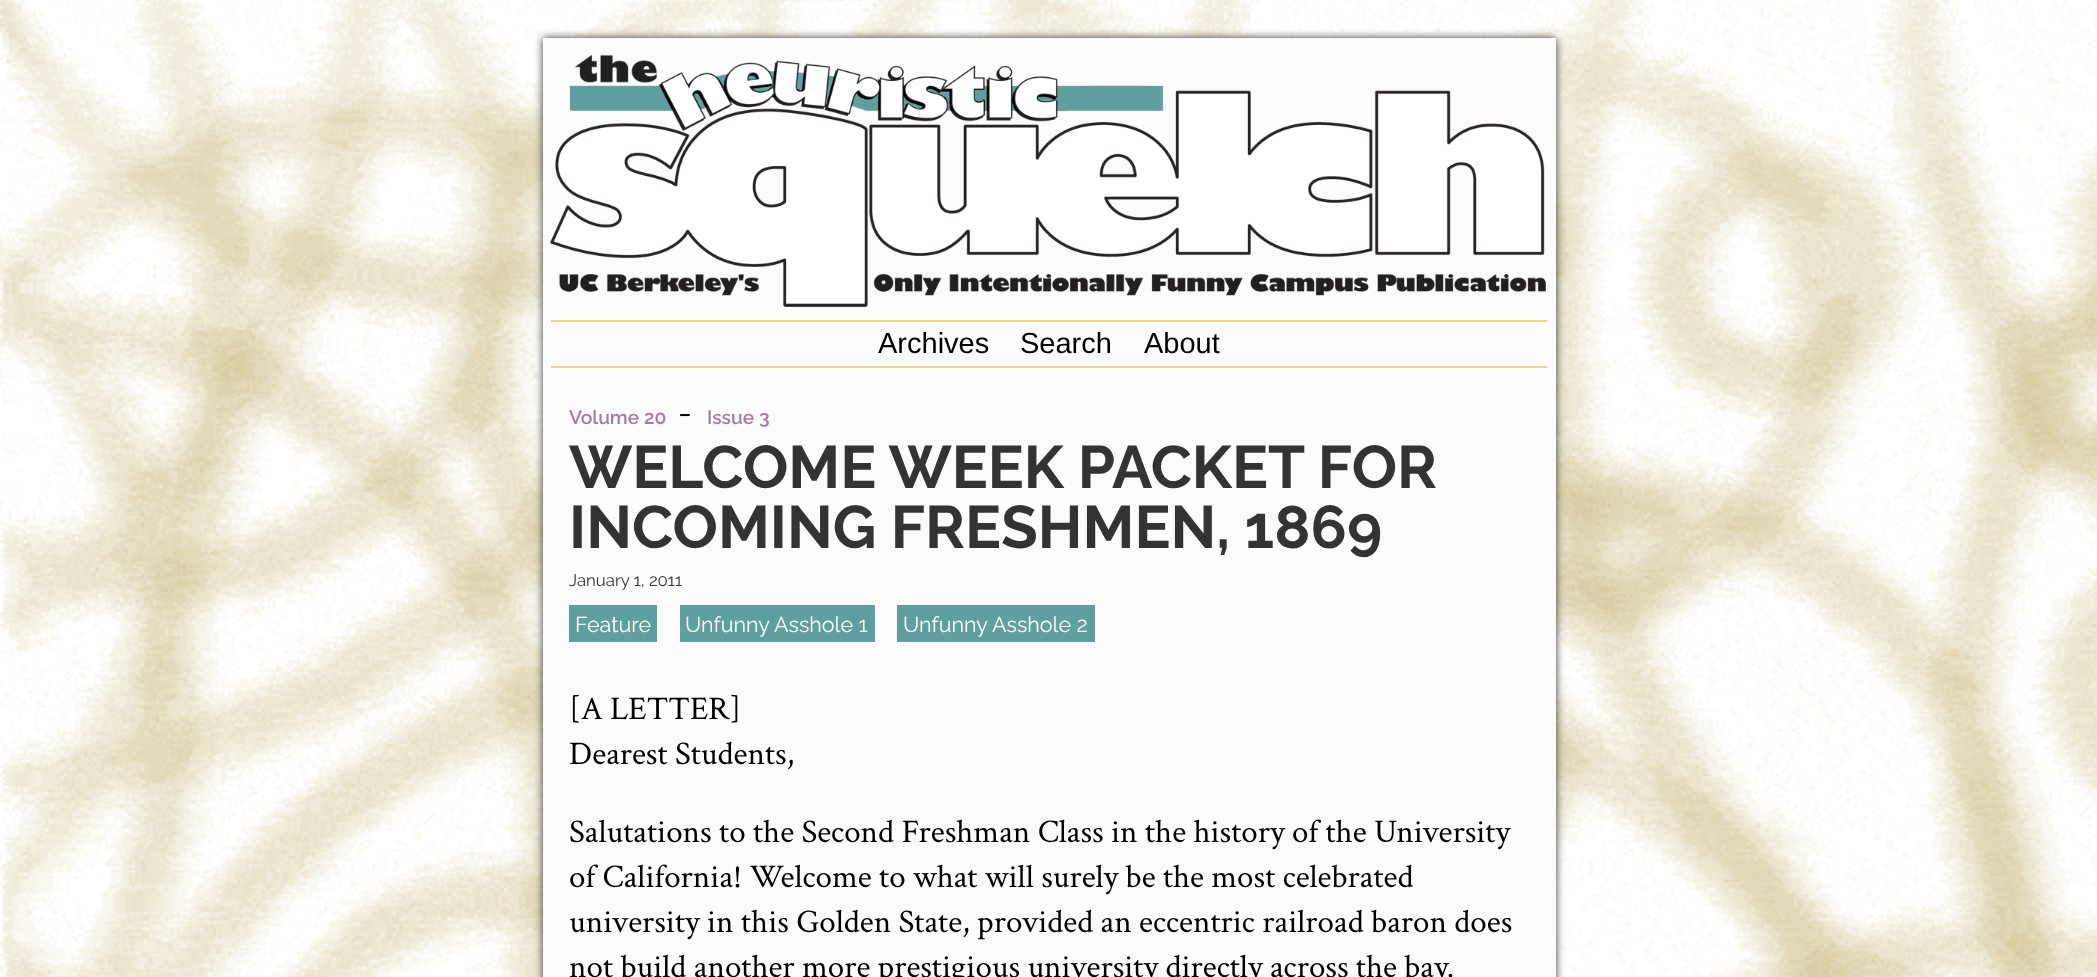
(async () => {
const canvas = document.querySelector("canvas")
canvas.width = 2097
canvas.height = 977
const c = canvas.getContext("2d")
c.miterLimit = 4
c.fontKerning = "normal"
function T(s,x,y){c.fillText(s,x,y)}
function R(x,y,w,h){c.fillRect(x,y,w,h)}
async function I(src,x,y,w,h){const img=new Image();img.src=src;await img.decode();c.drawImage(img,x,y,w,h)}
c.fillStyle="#fff"
R(0,0,2097,977)
await I("1.png",0,0,2097,977)
c.fillStyle="#333"
c.filter="blur(4px)"
c.beginPath()
c.rect(543,38,1013,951)
c.fill()
c.filter="none"
c.fillStyle="#fbfbfb"
R(543,38,1013,939)
c.fillStyle="#ebda81"
R(551,320,996,2)
await I("2.png",550,54,996,253)
R(551,366,996,2)
c.font="29px Liberation Sans"
c.fillStyle="#000"
T("Archives",878,353)
T("Search",1020,353)
T("About",1144,353)
c.font="600 19.25px Raleway"
c.fillStyle="#ac789e"
T("Volume 20",569,424)
c.font="33px Raleway"
c.fillStyle="#000"
T("-",678,424)
c.font="600 19.25px Raleway"
c.fillStyle="#ac789e"
T("Issue 3",707,424)
c.font="bold 60px Raleway"
c.fillStyle="#333"
T("WELCOME WEEK PACKET FOR",569,488)
T("INCOMING FRESHMEN, 1869",569,548)
c.font="16.75px Raleway"
T("January 1, 2011",569,586)
c.fillStyle="#5f9f9f"
R(569,605,88,37)
c.font="21.5px Raleway"
c.fillStyle="#fff"
T("Feature",575,632)
c.fillStyle="#5f9f9f"
R(680,605,195,37)
c.fillStyle="#fff"
T("Unfunny Asshole 1",685,632)
c.fillStyle="#5f9f9f"
R(897,605,198,37)
c.fillStyle="#fff"
T("Unfunny Asshole 2",903,632)
c.font="33px Crimson Text"
c.fillStyle="#000"
T("[A LETTER]",569,719)
T("Dearest Students,",569,764)
T("Salutations to the Second Freshman Class in the history of the University",569,842)
T("of California! Welcome to what will surely be the most celebrated",569,887)
T("university in this Golden State, provided an eccentric railroad baron does",569,932)
T("not build another more prestigious university directly across the bay.",569,977)
})()
